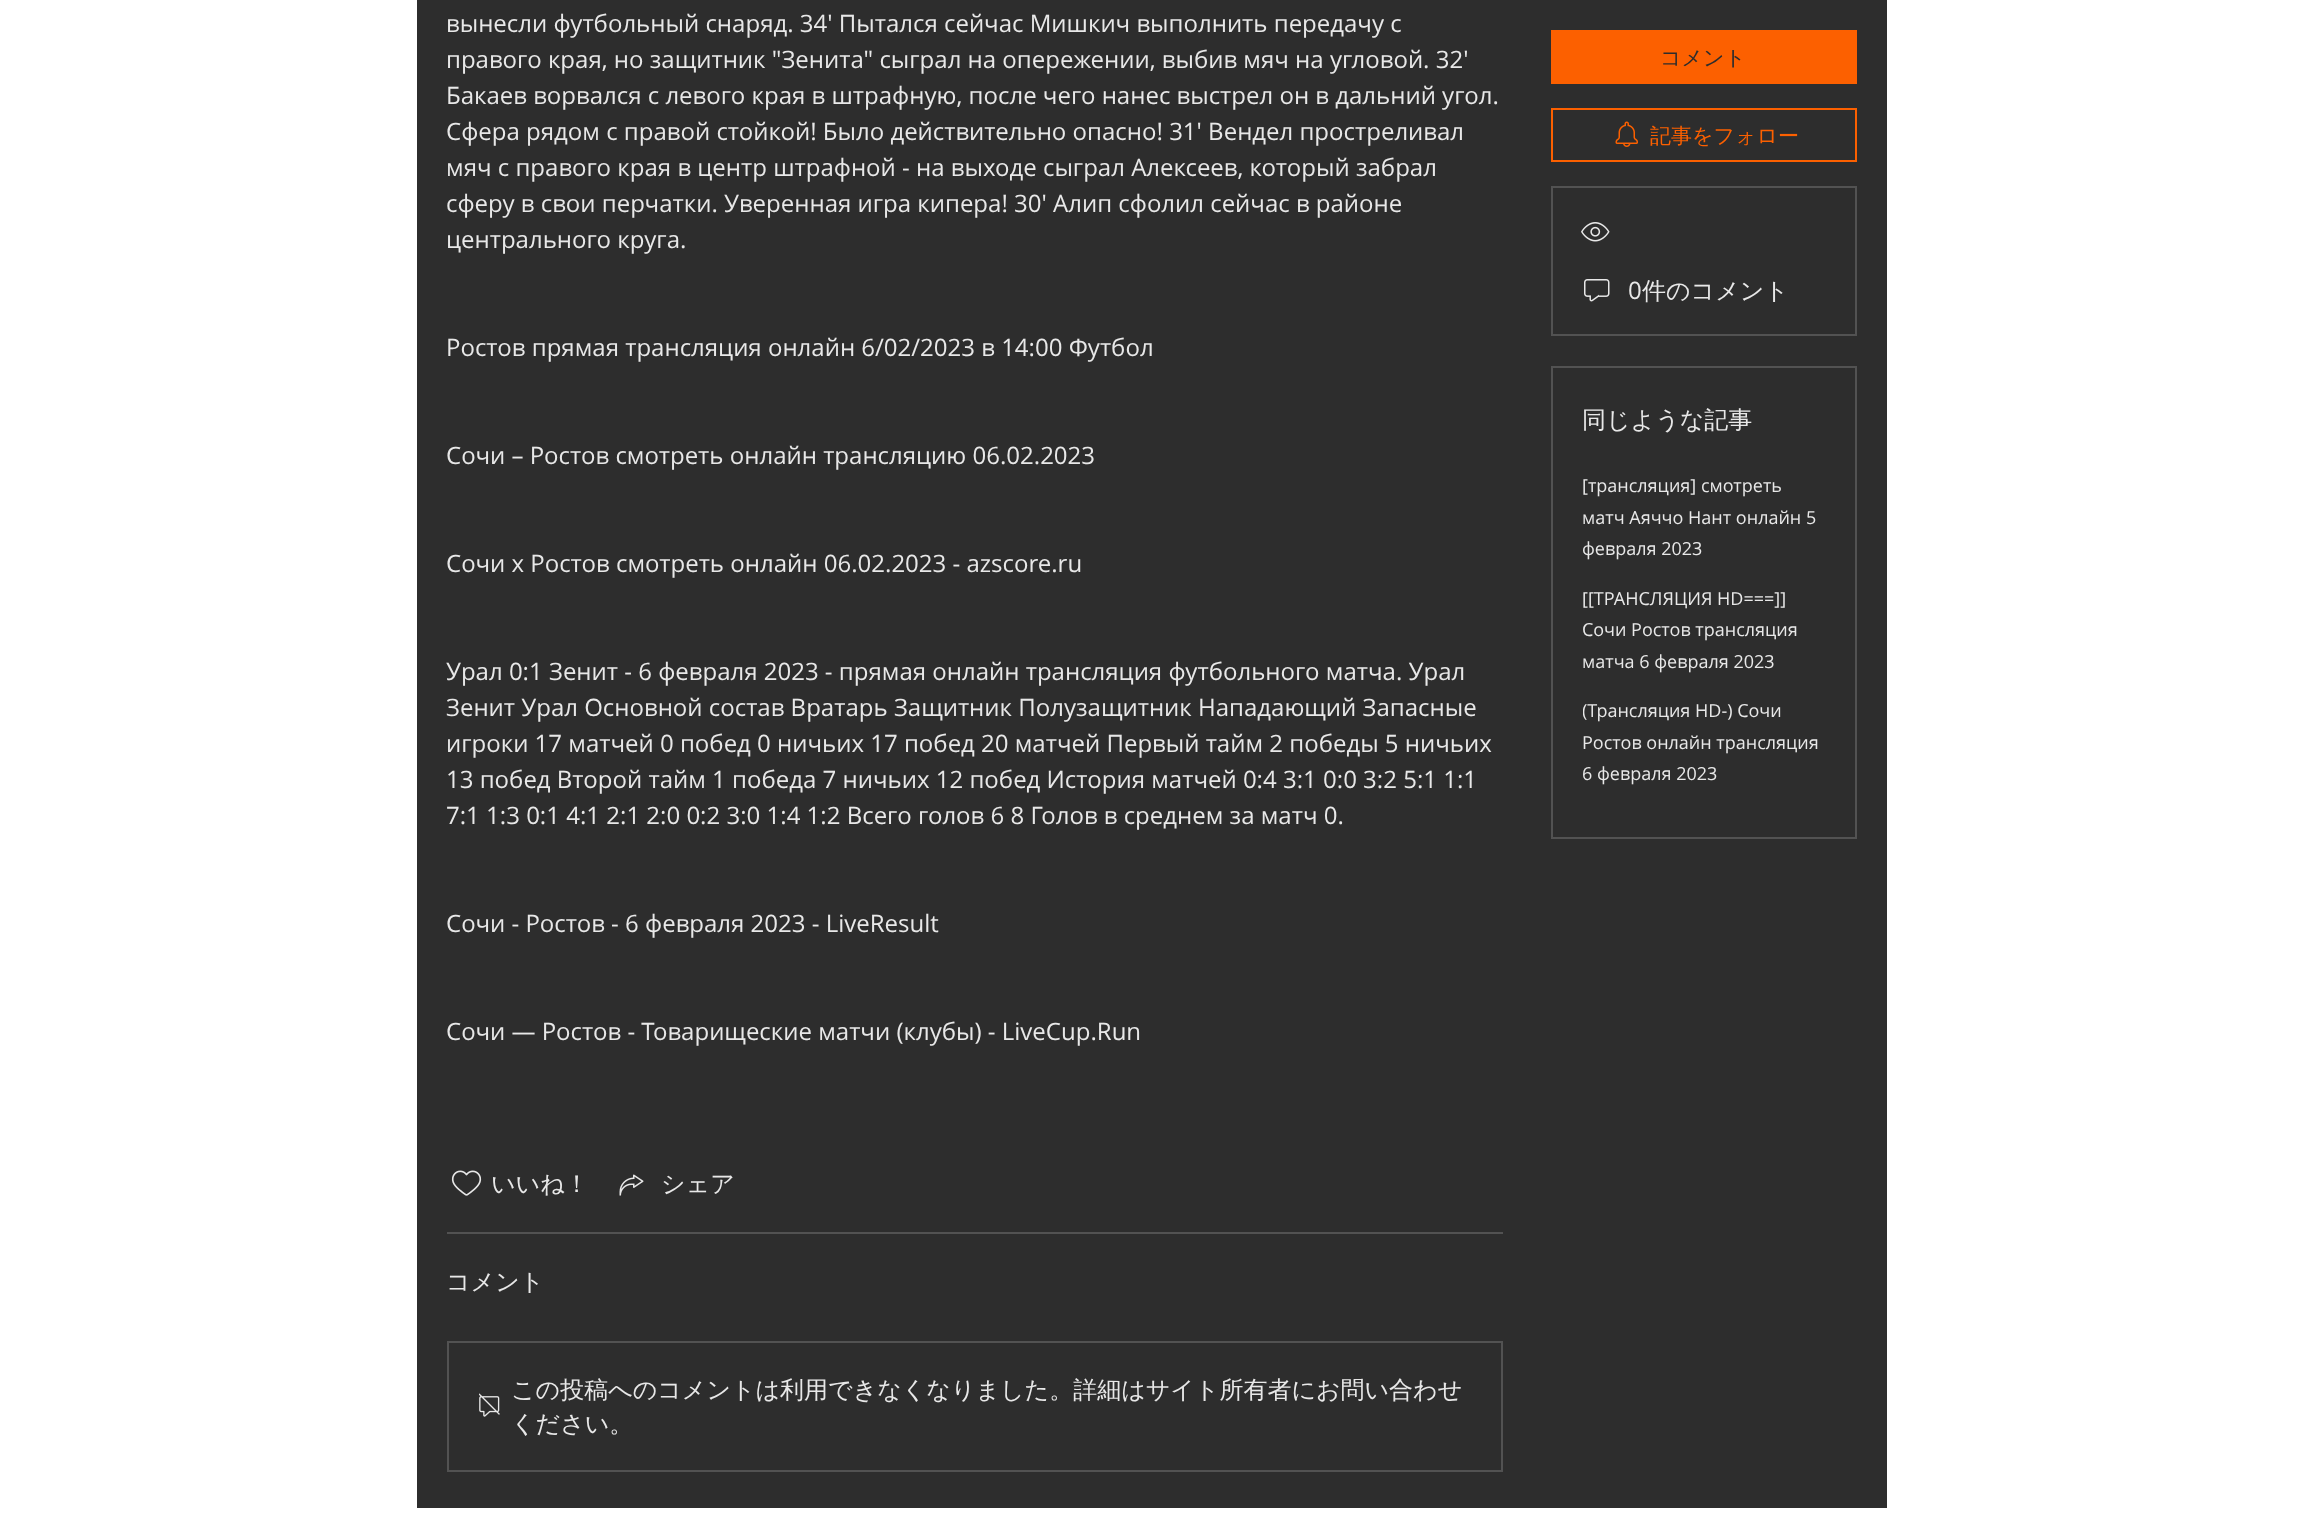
(async () => {
const canvas = document.querySelector("canvas")
canvas.width = 2302
canvas.height = 1514
const c = canvas.getContext("2d")
c.miterLimit = 4
c.fontKerning = "normal"
function T(s,x,y){c.fillText(s,x,y)}
function R(x,y,w,h){c.fillRect(x,y,w,h)}
async function I(src,x,y,w,h){const img=new Image();img.src=src;await img.decode();c.drawImage(img,x,y,w,h)}
c.fillStyle="#fff"
R(0,0,2302,1514)
c.fillStyle="#2d2d2d"
R(417,0,1470,1508)
c.font="24px Open Sans"
c.fillStyle="#e8e8e8"
T("вынесли футбольный снаряд. 34' Пытался сейчас Мишкич выполнить передачу с",446,32)
T("правого края, но защитник \"Зенита\" сыграл на опережении, выбив мяч на угловой. 32'",446,68)
T("Бакаев ворвался с левого края в штрафную, после чего нанес выстрел он в дальний угол.",446,104)
T("Сфера рядом с правой стойкой! Было действительно опасно! 31' Вендел простреливал",446,140)
T("мяч с правого края в центр штрафной - на выходе сыграл Алексеев, который забрал",446,176)
T("сферу в свои перчатки. Уверенная игра кипера! 30' Алип сфолил сейчас в районе",446,212)
T("центрального круга.",446,248)
T("Ростов прямая трансляция онлайн 6/02/2023 в 14:00 Футбол",446,356)
T("Сочи – Ростов смотреть онлайн трансляцию 06.02.2023",446,464)
T("Сочи x Ростов смотреть онлайн 06.02.2023 - azscore.ru",446,572)
T("Урал 0:1 Зенит - 6 февраля 2023 - прямая онлайн трансляция футбольного матча. Урал",446,680)
T("Зенит Урал Основной состав Вратарь Защитник Полузащитник Нападающий Запасные",446,716)
T("игроки 17 матчей 0 побед 0 ничьих 17 побед 20 матчей Первый тайм 2 победы 5 ничьих",446,752)
T("13 побед Второй тайм 1 победа 7 ничьих 12 побед История матчей 0:4 3:1 0:0 3:2 5:1 1:1",446,788)
T("7:1 1:3 0:1 4:1 2:1 2:0 0:2 3:0 1:4 1:2 Всего голов 6 8 Голов в среднем за матч 0.",446,824)
T("Сочи - Ростов - 6 февраля 2023 - LiveResult",446,932)
T("Сочи — Ростов - Товарищеские матчи (клубы) - LiveCup.Run",446,1040)
await I("1.png",451,1170,31,26)
c.font="500 24px WenQuanYi Zen Hei"
T("いいね！",491,1192)
await I("2.png",619,1174,25,22)
T("シェア",661,1192)
c.fillStyle="#525252"
R(447,1232,1056,2)
c.fillStyle="#e8e8e8"
T("コメント",446,1290)
c.strokeStyle="#525252"
c.lineWidth=2
c.strokeRect(448,1342,1054,129)
await I("3.png",479,1393,21,24)
T("この投稿へのコメントは利用できなくなりました。詳細はサイト所有者にお問い合わせ",511,1398)
T("ください。",511,1432)
c.fillStyle="#fc6000"
R(1551,30,306,54)
c.font="500 21px WenQuanYi Zen Hei"
c.fillStyle="#2d2d2d"
T("コメント",1660,65)
c.strokeStyle="#fc6000"
c.strokeRect(1552,109,304,52)
await I("4.png",1615,121,23,26)
c.fillStyle="#fc6000"
T("記事をフォロー",1650,143)
c.strokeStyle="#525252"
c.strokeRect(1552,187,304,148)
await I("5.png",1581,222,29,20)
await I("6.png",1584,279,26,23)
c.font="24px Open Sans"
c.fillStyle="#e8e8e8"
T("0",1628,299)
c.font="500 24px WenQuanYi Zen Hei"
T("件のコメント",1642,299)
c.strokeRect(1552,367,304,471)
T("同じような記事",1582,428)
c.font="18px Open Sans"
T("[трансляция] смотреть",1582,492)
T("матч Аяччо Нант онлайн 5",1582,524)
c.save()
c.beginPath()
c.rect(1583,470,243,94)
c.clip()
T("февраля 2023",1582,555)
c.restore()
T("[[ТРАНСЛЯЦИЯ HD===]]",1582,605)
T("Сочи Ростов трансляция",1582,636)
T("матча 6 февраля 2023",1582,668)
c.save()
c.beginPath()
c.rect(1583,695,243,94)
c.clip()
T("(Трансляция HD-) Сочи",1582,717)
c.restore()
T("Ростов онлайн трансляция",1582,749)
c.save()
c.beginPath()
c.rect(1583,695,243,94)
c.clip()
T("6 февраля 2023",1582,780)
c.restore()
})()
